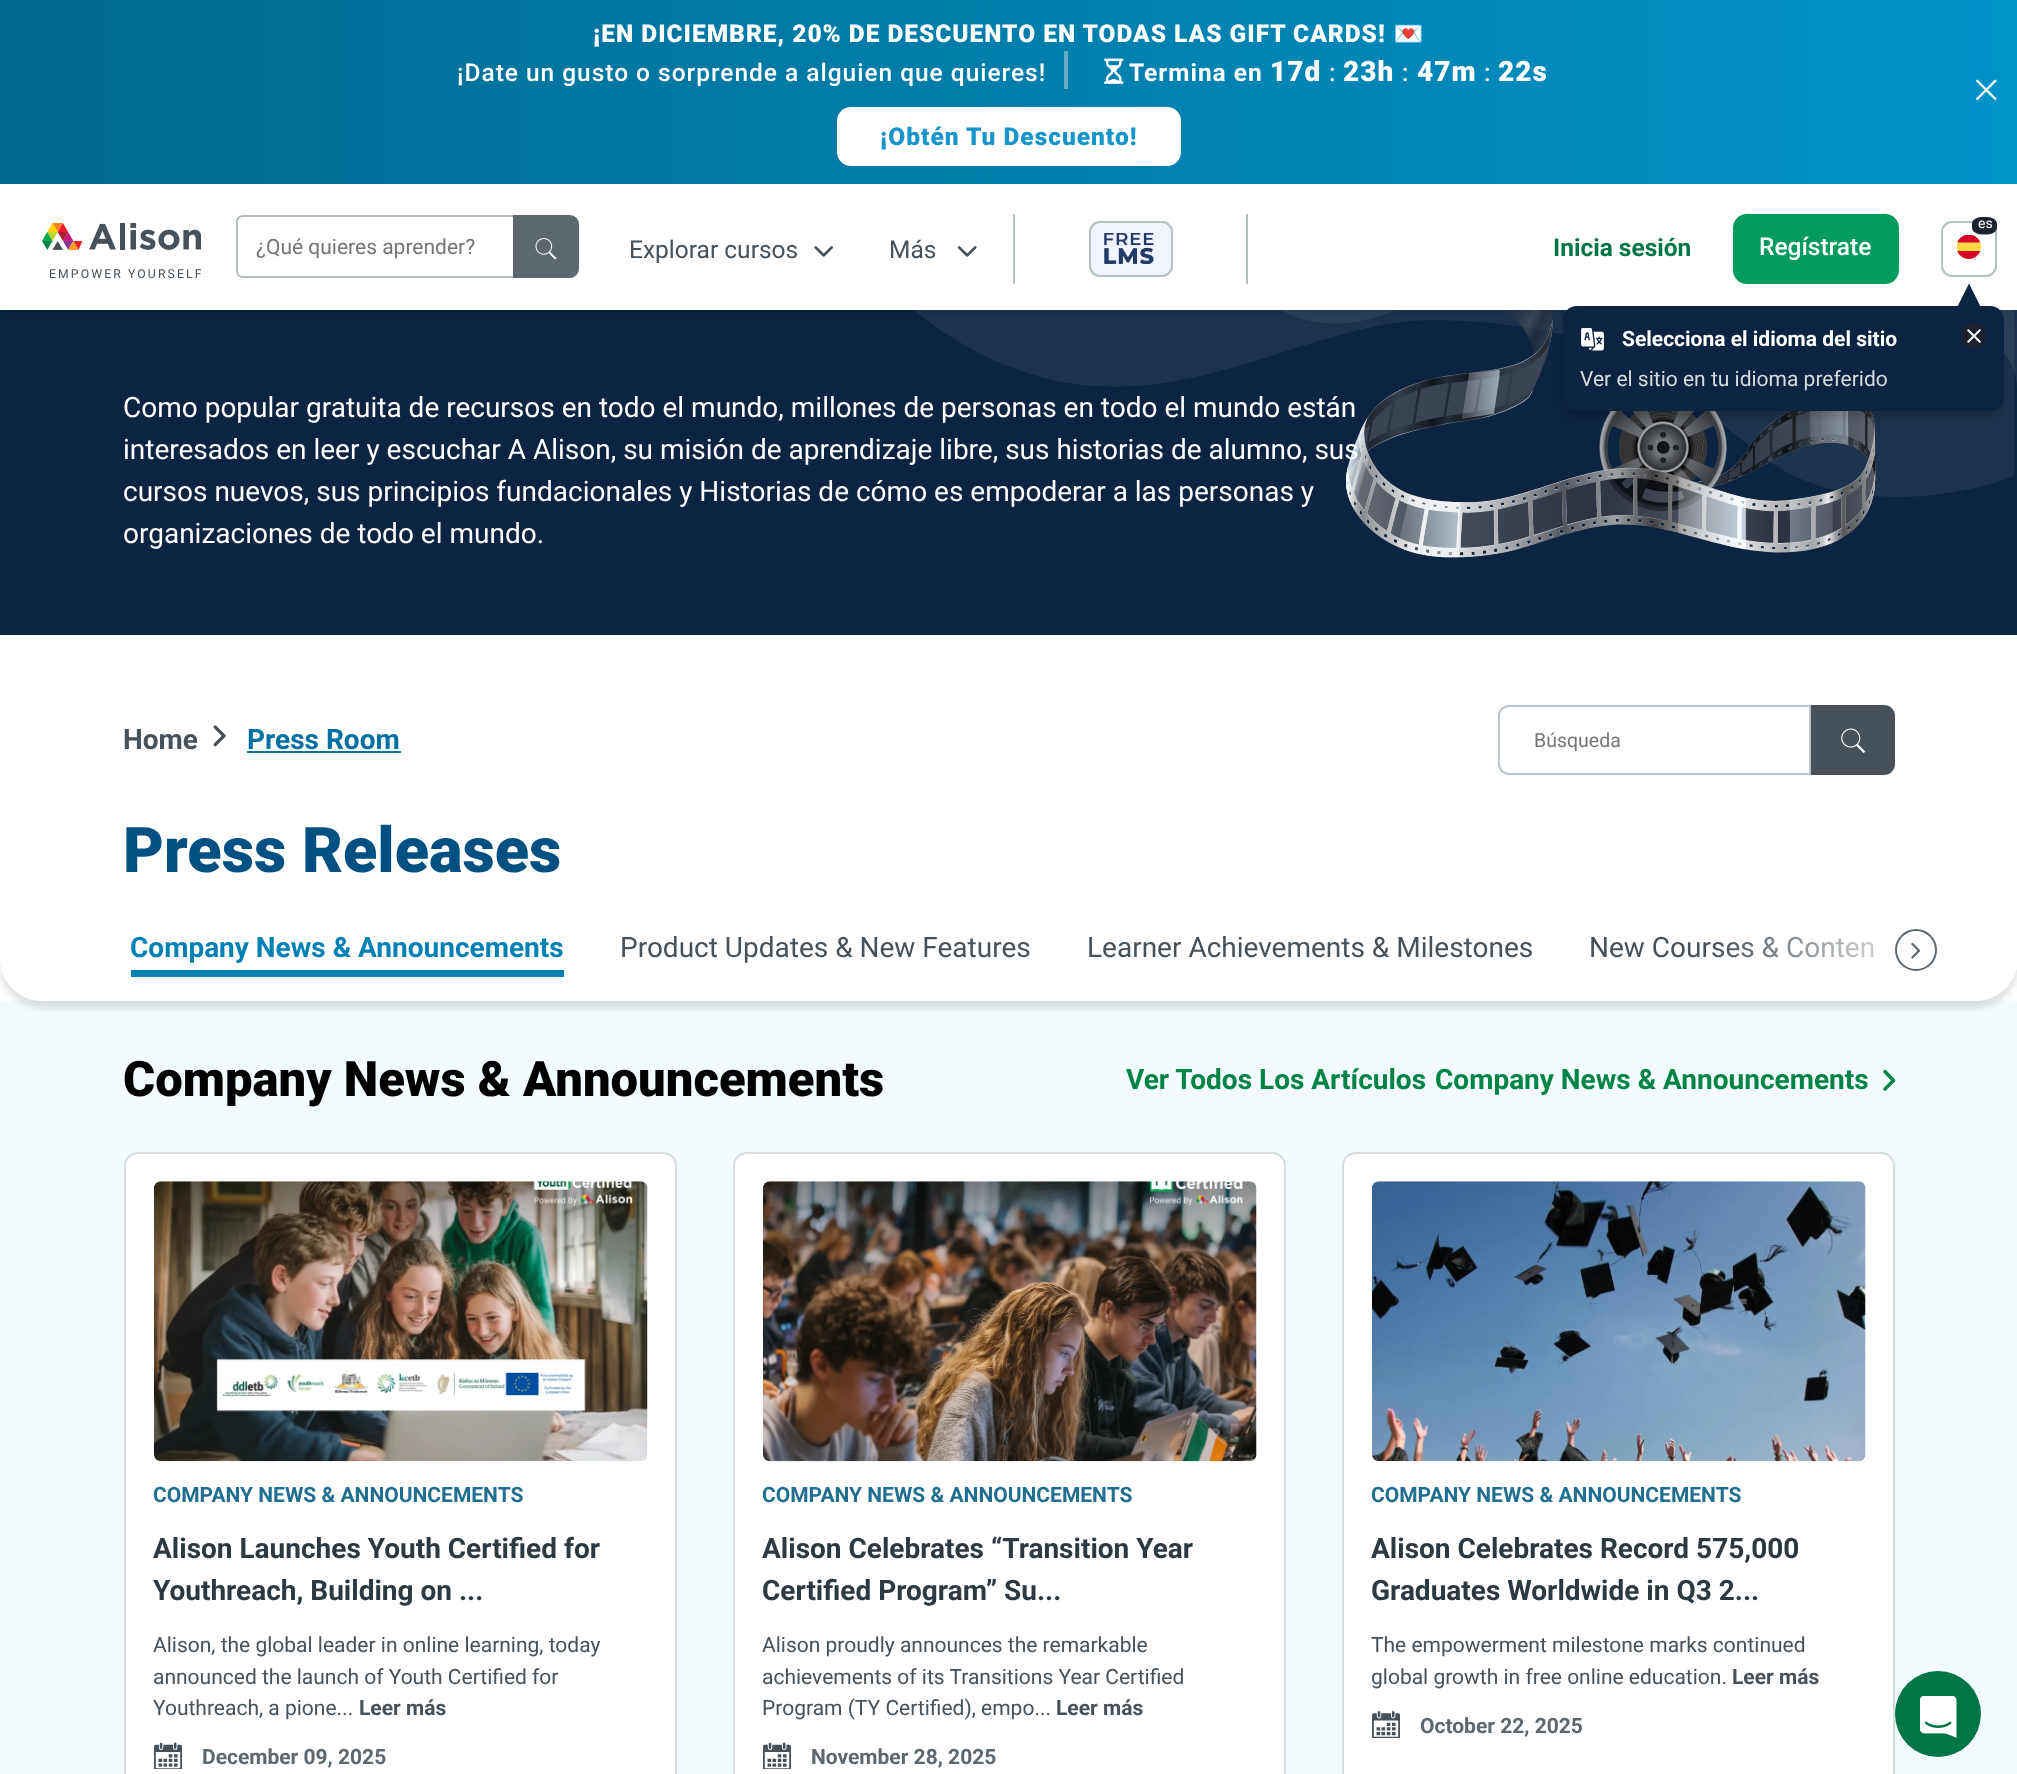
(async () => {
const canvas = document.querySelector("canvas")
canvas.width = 2017
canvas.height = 1774
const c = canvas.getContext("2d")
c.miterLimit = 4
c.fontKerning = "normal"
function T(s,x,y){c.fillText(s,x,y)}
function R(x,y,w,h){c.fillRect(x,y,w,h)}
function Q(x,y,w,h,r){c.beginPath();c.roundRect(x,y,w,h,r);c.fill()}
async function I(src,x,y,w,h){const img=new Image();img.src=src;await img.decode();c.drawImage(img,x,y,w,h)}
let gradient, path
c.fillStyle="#fff"
R(0,0,2017,1774)
c.fillStyle="#0b2441"
R(0,310,2017,325)
await I("11.png",913,310,1104,248)
c.fillStyle="#00000014"
c.filter="blur(5px)"
c.beginPath()
c.rect(0,189,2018,126)
c.fill()
c.filter="none"
gradient = c.createLinearGradient(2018,92,0,92)
gradient.addColorStop(0,"#0093c7")
gradient.addColorStop(1,"#006a90")
c.fillStyle = gradient
R(0,0,2017,184)
c.letterSpacing="0.98px"
c.font="900 24.5px Roboto"
c.fillStyle="#fff"
T("¡EN DICIEMBRE, 20% DE DESCUENTO EN TODAS LAS GIFT CARDS!",593,42)
c.font="bold 24.5px Noto Color Emoji"
T("💌",1393,42)
c.font="500 24.5px Roboto"
T("¡Date un gusto o sorprende a alguien que quieres!",457,81)
c.fillStyle="#69acc6"
R(1064,51,4,38)
await I("1.png",1104,58,20,26)
c.font="bold 24.5px Roboto"
c.fillStyle="#fff"
T("Termina en",1129,81)
c.letterSpacing="1px"
c.font="900 28px Roboto"
T("17d",1270,81)
c.letterSpacing="0.98px"
c.font="500 24.5px Roboto"
T(":",1329,81)
c.letterSpacing="1px"
c.font="900 28px Roboto"
T("23h",1343,81)
c.letterSpacing="0.98px"
c.font="500 24.5px Roboto"
T(":",1402,81)
c.letterSpacing="1px"
c.font="900 28px Roboto"
T("47m",1417,81)
c.letterSpacing="0.98px"
c.font="500 24.5px Roboto"
T(":",1484,81)
c.letterSpacing="1px"
c.font="900 28px Roboto"
T("22s",1498,81)
Q(837,107,344,59,14)
c.letterSpacing="0.98px"
c.font="900 24.5px Roboto"
c.fillStyle="#1794c9"
T("¡Obtén Tu Descuento!",880,145)
await I("2.png",1975,79,22,22)
c.fillStyle="#fff"
R(0,184,2017,126)
c.fillStyle="#b3bdc0"
path = new Path2D("M243 215h270v63h-270c-4 0-7-3-7-7v-49c0-4 3-7 7-7zm0 2h270v59h-270c-3 0-5-2-5-5v-49c0-3 2-5 5-5z")
c.fill(path,"evenodd")
c.letterSpacing="0px"
c.font="21px Roboto"
c.fillStyle="#757575"
T("¿Qué quieres aprender?",256,254)
c.fillStyle="#5d676e"
c.beginPath()
c.roundRect(514,216,64,61,[0,8,8,0])
c.fill()
c.strokeStyle="#5d676e"
c.lineWidth=2
c.stroke()
await I("3.png",535,238,22,22)
await I("4.png",42,223,159,27)
c.letterSpacing="2.1px"
c.font="12.25px Roboto"
c.fillStyle="#465159"
T("EMPOWER YOURSELF",49,278)
c.letterSpacing="0px"
c.font="24.5px Roboto"
T("Explorar cursos",629,258)
await I("5.png",814,246,19,11)
T("Más",889,258)
await I("6.png",957,246,20,11)
c.fillStyle="#b3c2bc"
R(1246,214,2,70)
R(1013,214,2,70)
c.fillStyle="#f0f4ff"
Q(1089,221,84,56,11)
await I("7.png",1104,233,50,31)
c.beginPath()
c.roundRect(1090,222,82,54,10)
c.strokeStyle="#b3c2bc"
c.stroke()
c.beginPath()
c.roundRect(1942,222,54,54,10)
c.stroke()
c.fillStyle="#1c232e"
path = new Path2D("M1982 217h5c5.5 0 10 3 10 7v3.5c0 4-4.5 7-10 7h-5c-5.5 0-10-3-10-7v-3.5c0-4 4.5-7 10-7z")
c.fill(path)
c.font="14px Roboto"
c.fillStyle="#fff"
T("es",1978,228)
await I("8.png",1957,235,24,24)
c.fillStyle="#00000029"
c.filter="blur(5px)"
c.beginPath()
c.roundRect(1563,312,441,105,14)
c.fill()
c.filter="none"
c.fillStyle="#0b2441"
Q(1563,306,441,105,14)
path = new Path2D("M1983 311.5h-28l14-28z")
c.fill(path)
await I("9.png",1581,328,23,23)
c.font="bold 21px Roboto"
c.fillStyle="#fff"
T("Selecciona el idioma del sitio",1622,346)
c.font="21px Roboto"
c.fillStyle="#d7dcdf"
T("Ver el sitio en tu idioma preferido",1580,386)
c.fillStyle="#1c232e"
Q(1962,324,24,24,11)
await I("10.png",1967,329,14,14)
c.font="bold 24.5px Roboto"
c.fillStyle="#007646"
T("Inicia sesión",1553,256)
c.fillStyle="#009b5d"
Q(1733,214,166,70,14)
c.font="500 24.5px Roboto"
c.fillStyle="#fff"
T("Regístrate",1759,255)
c.font="28px Roboto"
T("Como popular gratuita de recursos en todo el mundo, millones de personas en todo el mundo están",123,417)
T("interesados en leer y escuchar A Alison, su misión de aprendizaje libre, sus historias de alumno, sus",123,459)
T("cursos nuevos, sus principios fundacionales y Historias de cómo es empoderar a las personas y",123,501)
T("organizaciones de todo el mundo.",123,543)
c.font="bold 28px Roboto"
c.fillStyle="#465159"
T("Home",123,749)
await I("12.png",213,725,13,22)
c.fillStyle="#0070a3"
T("Press Room",247,749)
R(247,751,154,2)
c.beginPath()
c.roundRect(1499,706,311,68,[10,0,0,10])
c.strokeStyle="#bbc5cb"
c.stroke()
c.font="19.5px Roboto"
c.fillStyle="#757575"
T("Búsqueda",1534,747)
c.fillStyle="#465159"
c.beginPath()
c.roundRect(1811,705,84,70,[0,11,11,0])
c.fill()
await I("13.png",1841,728,25,25)
c.font="900 63px Roboto"
c.fillStyle="#005182"
T("Press Releases",123,872)
c.fillStyle="#f2fcff"
R(0,1001,2017,773)
c.fillStyle="#0000001f"
c.filter="blur(3.5px)"
c.beginPath()
c.roundRect(0,910,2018,98,42)
c.fill()
c.filter="none"
c.fillStyle="#fff"
path = new Path2D("M0 903h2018v56c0 23-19 42-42 42h-1934c-23 0-42-19-42-42z")
c.fill(path)
c.font="28px Roboto"
c.fillStyle="#465159"
T("New Courses & Conten",1589,957)
gradient = c.createLinearGradient(1939,950,1712,950)
gradient.addColorStop(0,"#fff")
gradient.addColorStop(1,"#ffffff00")
c.fillStyle = gradient
R(1717,936,157,22)
c.beginPath()
c.arc(1916,950,20,0,7)
c.strokeStyle="#5d676e"
c.stroke()
await I("14.png",1911,942,10,17)
c.font="bold 28px Roboto"
c.fillStyle="#0081b6"
T("Company News & Announcements",130,957)
R(131,970,433,7)
c.font="28px Roboto"
c.fillStyle="#465159"
T("Product Updates & New Features",620,957)
T("Learner Achievements & Milestones",1087,957)
c.font="900 49px Roboto"
c.fillStyle="#000"
T("Company News & Announcements",123,1096)
c.font="bold 28px Roboto"
c.fillStyle="#008445"
T("Ver Todos Los Artículos",1126,1089)
T("Company News & Announcements",1435,1089)
path = new Path2D("M1885 1071.5l8.5 9l-8.5 8.5")
c.strokeStyle="#008445"
c.lineWidth=3.5
c.lineCap="round"
c.lineJoin="round"
c.stroke(path)
c.fillStyle="#fff"
c.beginPath()
c.roundRect(125,1153,551,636,13)
c.fill()
c.strokeStyle="#d7dcdf"
c.lineWidth=2
c.lineJoin="miter"
c.stroke()
await I("15.png",154,1181,494,281)
c.font="bold 21px Roboto"
c.fillStyle="#206e90"
T("COMPANY NEWS & ANNOUNCEMENTS",153,1502)
c.font="bold 28px Roboto"
c.fillStyle="#2d3941"
T("Alison Launches Youth Certified for",153,1558)
T("Youthreach, Building on ...",153,1600)
c.font="21px Roboto"
c.fillStyle="#465159"
T("Alison, the global leader in online learning, today",153,1652)
T("announced the launch of Youth Certified for",153,1684)
T("Youthreach, a pione...",153,1715)
c.font="bold 21px Roboto"
T("Leer más",359,1715)
await I("16.png",154,1742,28,27)
c.fillStyle="#5d676e"
T("December 09, 2025",202,1764)
c.fillStyle="#fff"
c.beginPath()
c.roundRect(734,1153,551,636,13)
c.fill()
c.stroke()
await I("17.png",763,1181,494,281)
c.fillStyle="#206e90"
T("COMPANY NEWS & ANNOUNCEMENTS",762,1502)
c.font="bold 28px Roboto"
c.fillStyle="#2d3941"
T("Alison Celebrates “Transition Year",762,1558)
T("Certified Program” Su...",762,1600)
c.font="21px Roboto"
c.fillStyle="#465159"
T("Alison proudly announces the remarkable",762,1652)
T("achievements of its Transitions Year Certified",762,1684)
T("Program (TY Certified), empo...",762,1715)
c.font="bold 21px Roboto"
T("Leer más",1056,1715)
await I("16.png",763,1742,28,27)
c.fillStyle="#5d676e"
T("November 28, 2025",811,1764)
c.fillStyle="#fff"
c.beginPath()
c.roundRect(1343,1153,551,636,13)
c.fill()
c.stroke()
await I("18.png",1372,1181,494,281)
c.fillStyle="#206e90"
T("COMPANY NEWS & ANNOUNCEMENTS",1371,1502)
c.font="bold 28px Roboto"
c.fillStyle="#2d3941"
T("Alison Celebrates Record 575,000",1371,1558)
T("Graduates Worldwide in Q3 2...",1371,1600)
c.font="21px Roboto"
c.fillStyle="#465159"
T("The empowerment milestone marks continued",1371,1652)
T("global growth in free online education.",1371,1684)
c.font="bold 21px Roboto"
T("Leer más",1732,1684)
await I("19.png",1372,1711,28,27)
c.fillStyle="#5d676e"
T("October 22, 2025",1420,1733)
c.fillStyle="#007646"
c.beginPath()
c.arc(1938,1714,43,0,7)
c.fill()
await I("20.png",1920,1696,37,42)
})()
